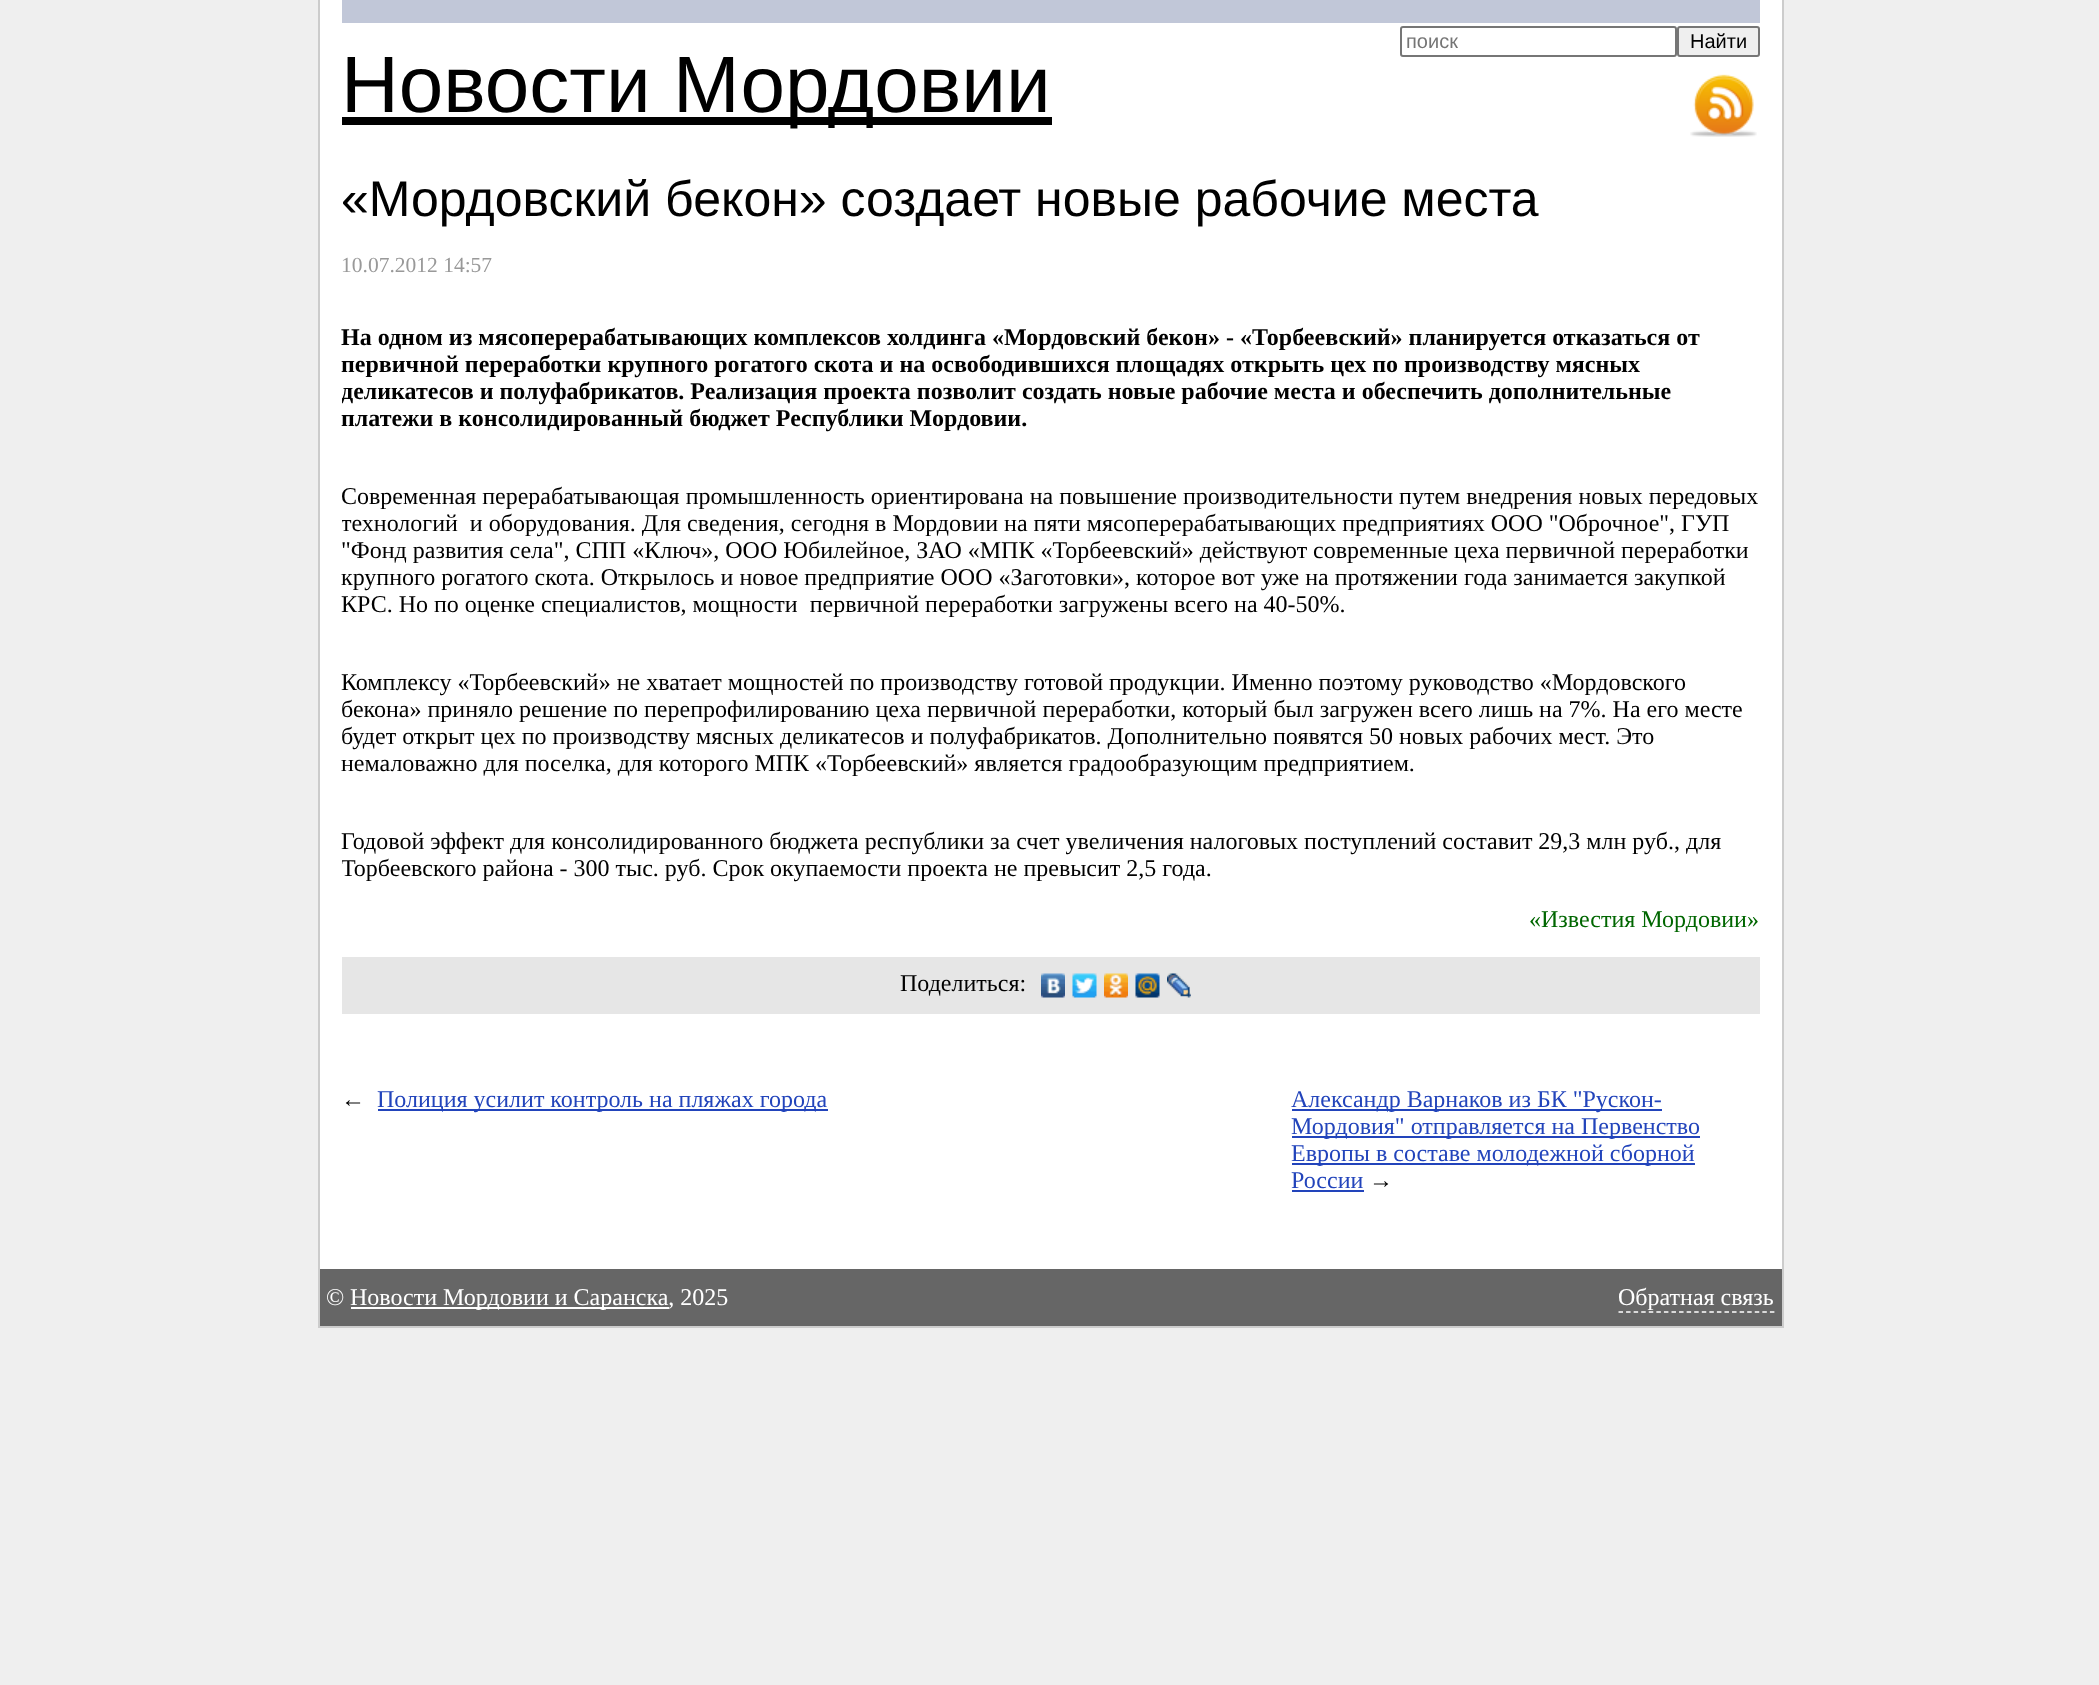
(async () => {
const canvas = document.querySelector("canvas")
canvas.width = 2099
canvas.height = 1685
const c = canvas.getContext("2d")
c.miterLimit = 4
c.fontKerning = "normal"
function T(s,x,y){c.fillText(s,x,y)}
function R(x,y,w,h){c.fillRect(x,y,w,h)}
async function I(src,x,y,w,h){const img=new Image();img.src=src;await img.decode();c.drawImage(img,x,y,w,h)}
let path
c.fillStyle="#efefef"
R(0,0,2099,1685)
c.fillStyle="#fff"
R(320,0,1462,1269)
c.fillStyle="#ccc"
R(1782,0,2,1328)
R(318,1326,1466,2)
R(318,0,2,1328)
c.fillStyle="#c1c7d8"
R(342,0,1418,23)
c.beginPath()
c.roundRect(1401,27,275,29,2)
c.strokeStyle="#767676"
c.lineWidth=2
c.stroke()
c.font="20px Liberation Sans"
c.fillStyle="#757575"
T("поиск",1406,48)
c.fillStyle="#efefef"
c.beginPath()
c.roundRect(1678,27,81,29,2)
c.fill()
c.stroke()
c.fillStyle="#000"
T("Найти",1690,48)
R(342,117,710,8)
c.font="80px Liberation Sans"
T("Новости Мордовии",341,112)
await I("1.png",1690,74,67,63)
c.font="50px Liberation Sans"
T("«Мордовский бекон» создает новые рабочие места",341,216)
c.font="21.5px Liberation Serif"
c.fillStyle="#999"
T("10.07.2012 14:57",341,272)
c.font="bold 24px Liberation Serif"
c.fillStyle="#000"
T("На одном из мясоперерабатывающих комплексов холдинга «Мордовский бекон» - «Торбеевский» планируется отказаться от",341,345)
T("первичной переработки крупного рогатого скота и на освободившихся площадях открыть цех по производству мясных",341,372)
c.save()
c.beginPath()
c.rect(342,300,1418,657)
c.clip()
T("деликатесов и полуфабрикатов. Реализация проекта позволит создать новые рабочие места и обеспечить дополнительные",341,399)
c.restore()
T("платежи в консолидированный бюджет Республики Мордовии.",341,426)
c.font="24px Liberation Serif"
T("Современная перерабатывающая промышленность ориентирована на повышение производительности путем внедрения новых передовых",341,504)
c.save()
c.beginPath()
c.rect(342,300,1418,657)
c.clip()
T("технологий  и оборудования. Для сведения, сегодня в Мордовии на пяти мясоперерабатывающих предприятиях ООО \"Оброчное\", ГУП",341,531)
c.restore()
T("\"Фонд развития села\", СПП «Ключ», ООО Юбилейное, ЗАО «МПК «Торбеевский» действуют современные цеха первичной переработки",341,558)
T("крупного рогатого скота. Открылось и новое предприятие ООО «Заготовки», которое вот уже на протяжении года занимается закупкой",341,585)
T("КРС. Но по оценке специалистов, мощности  первичной переработки загружены всего на 40-50%.",341,612)
T("Комплексу «Торбеевский» не хватает мощностей по производству готовой продукции. Именно поэтому руководство «Мордовского",341,690)
T("бекона» приняло решение по перепрофилированию цеха первичной переработки, который был загружен всего лишь на 7%. На его месте",341,717)
T("будет открыт цех по производству мясных деликатесов и полуфабрикатов. Дополнительно появятся 50 новых рабочих мест. Это",341,744)
T("немаловажно для поселка, для которого МПК «Торбеевский» является градообразующим предприятием.",341,771)
T("Годовой эффект для консолидированного бюджета республики за счет увеличения налоговых поступлений составит 29,3 млн руб., для",341,849)
c.save()
c.beginPath()
c.rect(342,300,1418,657)
c.clip()
T("Торбеевского района - 300 тыс. руб. Срок окупаемости проекта не превысит 2,5 года.",341,876)
c.restore()
c.fillStyle="#060"
T("«Известия Мордовии»",1529,927)
c.fillStyle="#e6e6e6"
R(342,957,1418,57)
c.fillStyle="#000"
T("Поделиться:",900,991)
await I("2.png",1041,973,24,25)
await I("3.png",1072,973,25,25)
await I("4.png",1104,973,24,25)
await I("5.png",1135,973,25,25)
await I("6.png",1167,973,24,25)
T("←",341,1107)
c.fillStyle="#24b"
R(378,1109,450,2)
T("Полиция усилит контроль на пляжах города",377,1107)
R(1292,1109,370,2)
T("Александр Варнаков из БК \"Рускон-",1291,1107)
R(1292,1136,408,2)
T("Мордовия\" отправляется на Первенство",1291,1134)
R(1292,1163,403,2)
T("Европы в составе молодежной сборной",1291,1161)
T("России",1291,1188)
R(1292,1190,72,2)
c.fillStyle="#000"
T("→",1369,1188)
c.fillStyle="#666"
R(320,1269,1462,57)
c.fillStyle="#fff"
T("©",326,1305)
R(351,1307,318,2)
T("Новости Мордовии и Саранска, 2025",350,1305)
path = new Path2D("M1618.5 1312h156")
c.strokeStyle="#fff"
c.lineWidth=1.5
c.setLineDash([4.5,3.07])
c.stroke(path)
T("Обратная связь",1618,1305)
})()
